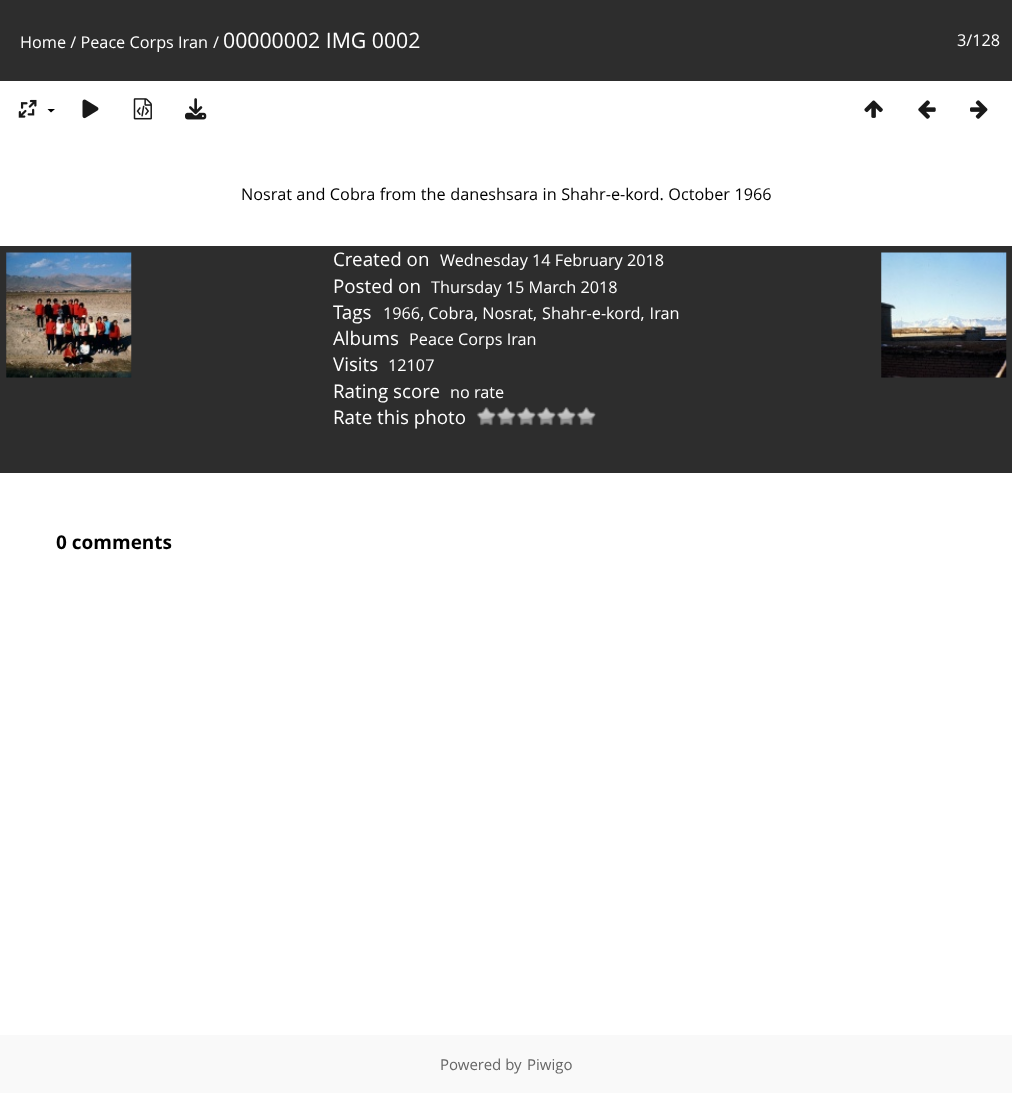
(async () => {
const canvas = document.querySelector("canvas")
canvas.width = 1012
canvas.height = 1093
const c = canvas.getContext("2d")
c.miterLimit = 4
c.fontKerning = "normal"
function T(s,x,y){c.fillText(s,x,y)}
function R(x,y,w,h){c.fillRect(x,y,w,h)}
async function I(src,x,y,w,h){const img=new Image();img.src=src;await img.decode();c.drawImage(img,x,y,w,h)}
let path
c.fillStyle="#fff"
R(0,0,1012,1093)
c.fillStyle="#2d2d2d"
R(0,0,1012,81)
c.font="16.25px Open Sans"
c.fillStyle="#fff"
T("Home / Peace Corps Iran",20,48)
T("/",213,48)
c.font="21.25px Open Sans"
T("00000002 IMG 0002",223,48)
c.font="16.25px Open Sans"
T("3/128",957,46)
await I("1.png",18,99,19,19)
c.fillStyle="#000"
path = new Path2D("M47.5 109h7.5l-4 3.5z")
c.fill(path)
await I("2.png",82,99,17,20)
await I("3.png",133,98,19,22)
await I("4.png",185,98,22,22)
await I("5.png",864,100,19,18)
await I("6.png",918,100,18,19)
await I("7.png",970,100,18,19)
c.wordSpacing="0.25px"
T("Nosrat and Cobra from the daneshsara in Shahr-e-kord. October 1966",241,200)
c.fillStyle="#2d2d2d"
R(0,246,1012,227)
c.wordSpacing="0px"
c.font="18.75px Open Sans"
c.fillStyle="#fff"
T("Created on",333,266)
c.font="16.25px Open Sans"
T("Wednesday 14 February 2018",440,266)
c.font="18.75px Open Sans"
T("Posted on",333,293)
c.font="16.25px Open Sans"
T("Thursday 15 March 2018",431,293)
c.font="18.75px Open Sans"
T("Tags",333,319)
c.font="16.25px Open Sans"
T("1966, Cobra",383,319)
T(", Nosrat",474,319)
T(",",533,319)
c.wordSpacing="1px"
T("Shahr-e-kord, Iran",542,319)
c.wordSpacing="0px"
c.font="18.75px Open Sans"
T("Albums",333,345)
c.font="16.25px Open Sans"
T("Peace Corps Iran",409,345)
c.font="18.75px Open Sans"
T("Visits",333,371)
c.font="16.25px Open Sans"
T("12107",388,371)
c.font="18.75px Open Sans"
T("Rating score",333,398)
c.font="16.25px Open Sans"
T("no rate",450,398)
c.font="18.75px Open Sans"
T("Rate this photo",333,424)
await I("8.png",476,407,20,19)
await I("8.png",496,407,20,19)
await I("8.png",516,407,20,19)
await I("8.png",536,407,20,19)
await I("8.png",556,407,20,19)
await I("8.png",576,407,20,19)
await I("9.png",6,252,126,126)
await I("10.png",881,252,126,126)
c.font="bold 19px Open Sans"
c.fillStyle="#000"
T("0 comments",56,549)
c.fillStyle="#f9f9f9"
R(0,1035,1012,58)
c.font="15px Open Sans"
c.fillStyle="#666"
T("Powered by",440,1070)
T("Piwigo",527,1070)
})()
